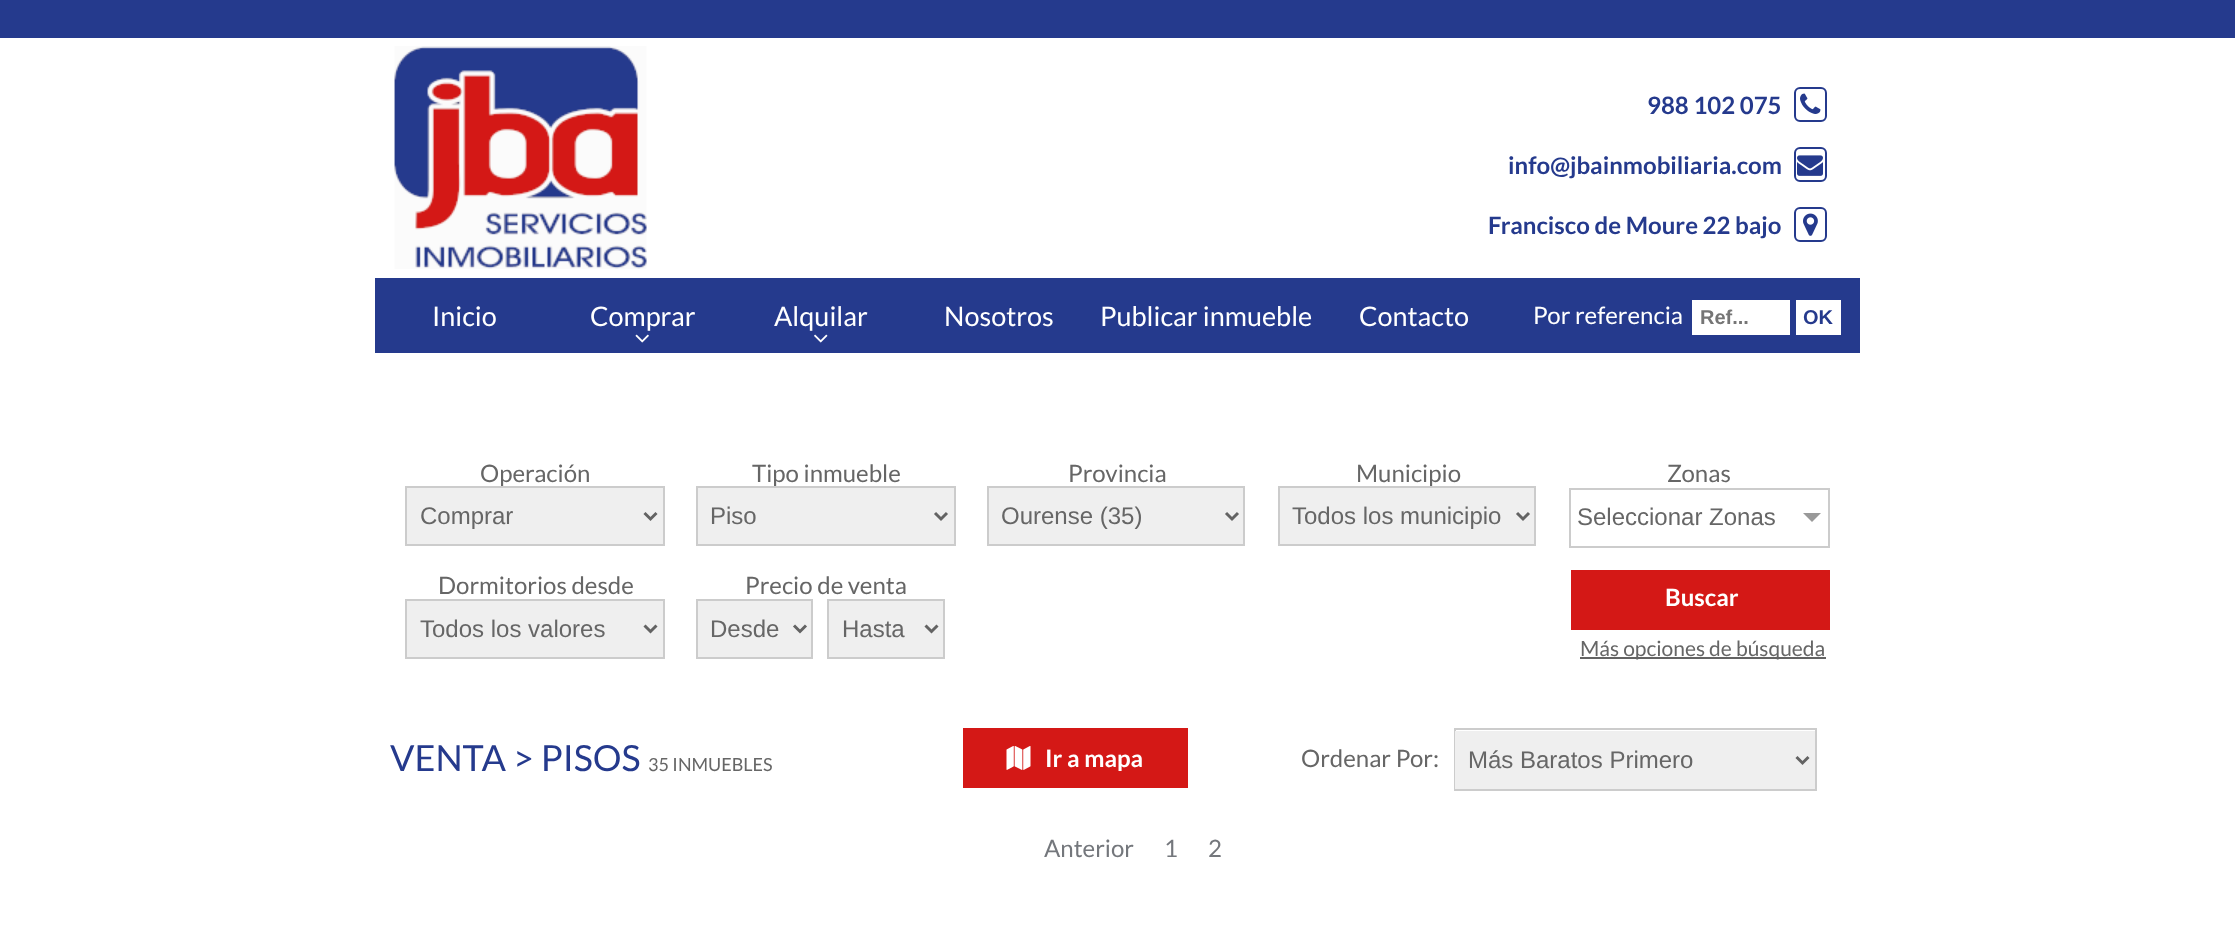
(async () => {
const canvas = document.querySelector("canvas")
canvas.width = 2235
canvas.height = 947
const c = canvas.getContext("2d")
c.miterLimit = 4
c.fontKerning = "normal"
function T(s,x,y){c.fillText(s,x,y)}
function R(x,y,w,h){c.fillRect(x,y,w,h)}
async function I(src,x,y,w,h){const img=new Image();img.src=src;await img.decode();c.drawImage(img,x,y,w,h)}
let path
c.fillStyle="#fff"
R(0,0,2235,947)
c.fillStyle="#253a8d"
R(0,0,2235,38)
await I("1.png",394,46,253,223)
c.font="bold 24px Lato"
T("988 102 075",1647,114)
c.beginPath()
c.roundRect(1795,88,31,33,5)
c.strokeStyle="#253a8d"
c.lineWidth=2
c.stroke()
await I("2.png",1800,93,21,21)
T("info@jbainmobiliaria.com",1508,174)
c.beginPath()
c.roundRect(1795,148,31,33,5)
c.stroke()
await I("3.png",1797,155,26,21)
T("Francisco de Moure 22 bajo",1488,234)
c.beginPath()
c.roundRect(1795,208,31,33,5)
c.stroke()
await I("4.png",1803,213,15,23)
R(375,278,1485,75)
c.font="27px Lato"
c.fillStyle="#fff"
T("Inicio",432,326)
T("Comprar",590,326)
await I("5.png",635,334,14,9)
T("Alquilar",774,326)
await I("6.png",814,334,14,9)
T("Nosotros",944,326)
T("Publicar inmueble",1100,326)
T("Contacto",1359,326)
c.font="24px Lato"
T("Por referencia",1533,324)
R(1692,300,98,35)
c.font="bold 20px Liberation Sans"
c.fillStyle="#757575"
T("Ref...",1700,324)
c.fillStyle="#fff"
R(1796,300,45,35)
c.fillStyle="#253a8d"
T("OK",1803,324)
c.font="24px Lato"
c.fillStyle="#666"
T("Operación",480,482)
c.fillStyle="#efefef"
c.beginPath()
c.rect(406,487,258,58)
c.fill()
c.strokeStyle="#ccc"
c.stroke()
path = new Path2D("M644.5 513l6 6l6-6")
c.strokeStyle="#636363"
c.lineWidth=3
c.stroke(path)
c.font="24px Liberation Sans"
c.fillStyle="#666"
T("Comprar",420,524)
c.font="24px Lato"
T("Tipo inmueble",752,482)
c.fillStyle="#efefef"
c.beginPath()
c.rect(697,487,258,58)
c.fill()
c.strokeStyle="#ccc"
c.lineWidth=2
c.stroke()
path = new Path2D("M935 513l6 6l6-6")
c.strokeStyle="#636363"
c.lineWidth=3
c.stroke(path)
c.font="24px Liberation Sans"
c.fillStyle="#666"
T("Piso",710,524)
c.font="24px Lato"
T("Provincia",1068,482)
c.fillStyle="#efefef"
c.beginPath()
c.rect(988,487,256,58)
c.fill()
c.strokeStyle="#ccc"
c.lineWidth=2
c.stroke()
path = new Path2D("M1226 513l6 6l6-6")
c.strokeStyle="#636363"
c.lineWidth=3
c.stroke(path)
c.font="24px Liberation Sans"
c.fillStyle="#666"
T("Ourense (35)",1001,524)
c.font="24px Lato"
T("Municipio",1356,482)
c.fillStyle="#efefef"
c.beginPath()
c.rect(1279,487,256,58)
c.fill()
c.strokeStyle="#ccc"
c.lineWidth=2
c.stroke()
path = new Path2D("M1517 513l6 6l6-6")
c.strokeStyle="#636363"
c.lineWidth=3
c.stroke(path)
c.font="24px Liberation Sans"
c.fillStyle="#666"
T("Todos los municipio",1292,524)
c.font="24px Lato"
T("Zonas",1667,482)
c.strokeStyle="#ccc"
c.lineWidth=2
c.strokeRect(1570,489,259,58)
c.font="24px Liberation Sans"
T("Seleccionar Zonas",1577,525)
c.fillStyle="#999"
path = new Path2D("M1803 513h18l-9 9z")
c.fill(path)
c.font="24px Lato"
c.fillStyle="#666"
T("Dormitorios desde",438,594)
c.fillStyle="#efefef"
c.beginPath()
c.rect(406,600,258,58)
c.fill()
c.stroke()
path = new Path2D("M644.5 625.5l6 6l6-6")
c.strokeStyle="#636363"
c.lineWidth=3
c.stroke(path)
c.font="24px Liberation Sans"
c.fillStyle="#666"
T("Todos los valores",420,637)
c.font="24px Lato"
T("Precio de venta",745,594)
c.fillStyle="#efefef"
c.beginPath()
c.rect(697,600,115,58)
c.fill()
c.strokeStyle="#ccc"
c.lineWidth=2
c.stroke()
path = new Path2D("M794 625.5l6 6l6-6")
c.strokeStyle="#636363"
c.lineWidth=3
c.stroke(path)
c.font="24px Liberation Sans"
c.fillStyle="#666"
T("Desde",710,637)
c.fillStyle="#efefef"
c.beginPath()
c.rect(828,600,116,58)
c.fill()
c.strokeStyle="#ccc"
c.lineWidth=2
c.stroke()
path = new Path2D("M925.5 625.5l6 6l6-6")
c.strokeStyle="#636363"
c.lineWidth=3
c.stroke(path)
c.fillStyle="#666"
T("Hasta",842,637)
c.fillStyle="#d41816"
R(1571,570,259,60)
c.font="bold 24px Lato"
c.fillStyle="#fff"
T("Buscar",1665,606)
c.fillStyle="#636363"
R(1580,657,246,2)
c.font="21px Lato"
c.fillStyle="#666"
T("Más opciones de búsqueda",1580,656)
c.font="36px Lato"
c.fillStyle="#253a8d"
T("VENTA > PISOS",390,771)
c.font="18px Lato"
c.fillStyle="#666"
T("35 INMUEBLES",648,771)
c.fillStyle="#d41816"
R(963,728,225,60)
await I("7.png",1006,746,25,24)
c.font="bold 24px Lato"
c.fillStyle="#fff"
T("Ir a mapa",1045,767)
c.font="24px Lato"
c.fillStyle="#666"
T("Ordenar Por:",1301,767)
c.strokeStyle="#ccc"
c.lineWidth=2
c.strokeRect(1455,729,361,61)
c.fillStyle="#efefef"
R(1455,731,360,58)
path = new Path2D("M1796.5 757l6 6l6-6")
c.strokeStyle="#636363"
c.lineWidth=3
c.stroke(path)
c.font="24px Liberation Sans"
c.fillStyle="#666"
T("Más Baratos Primero",1468,768)
c.font="24px Lato"
c.fillStyle="#74777c"
T("Anterior",1044,857)
T("1",1164,857)
T("2",1208,857)
})()
